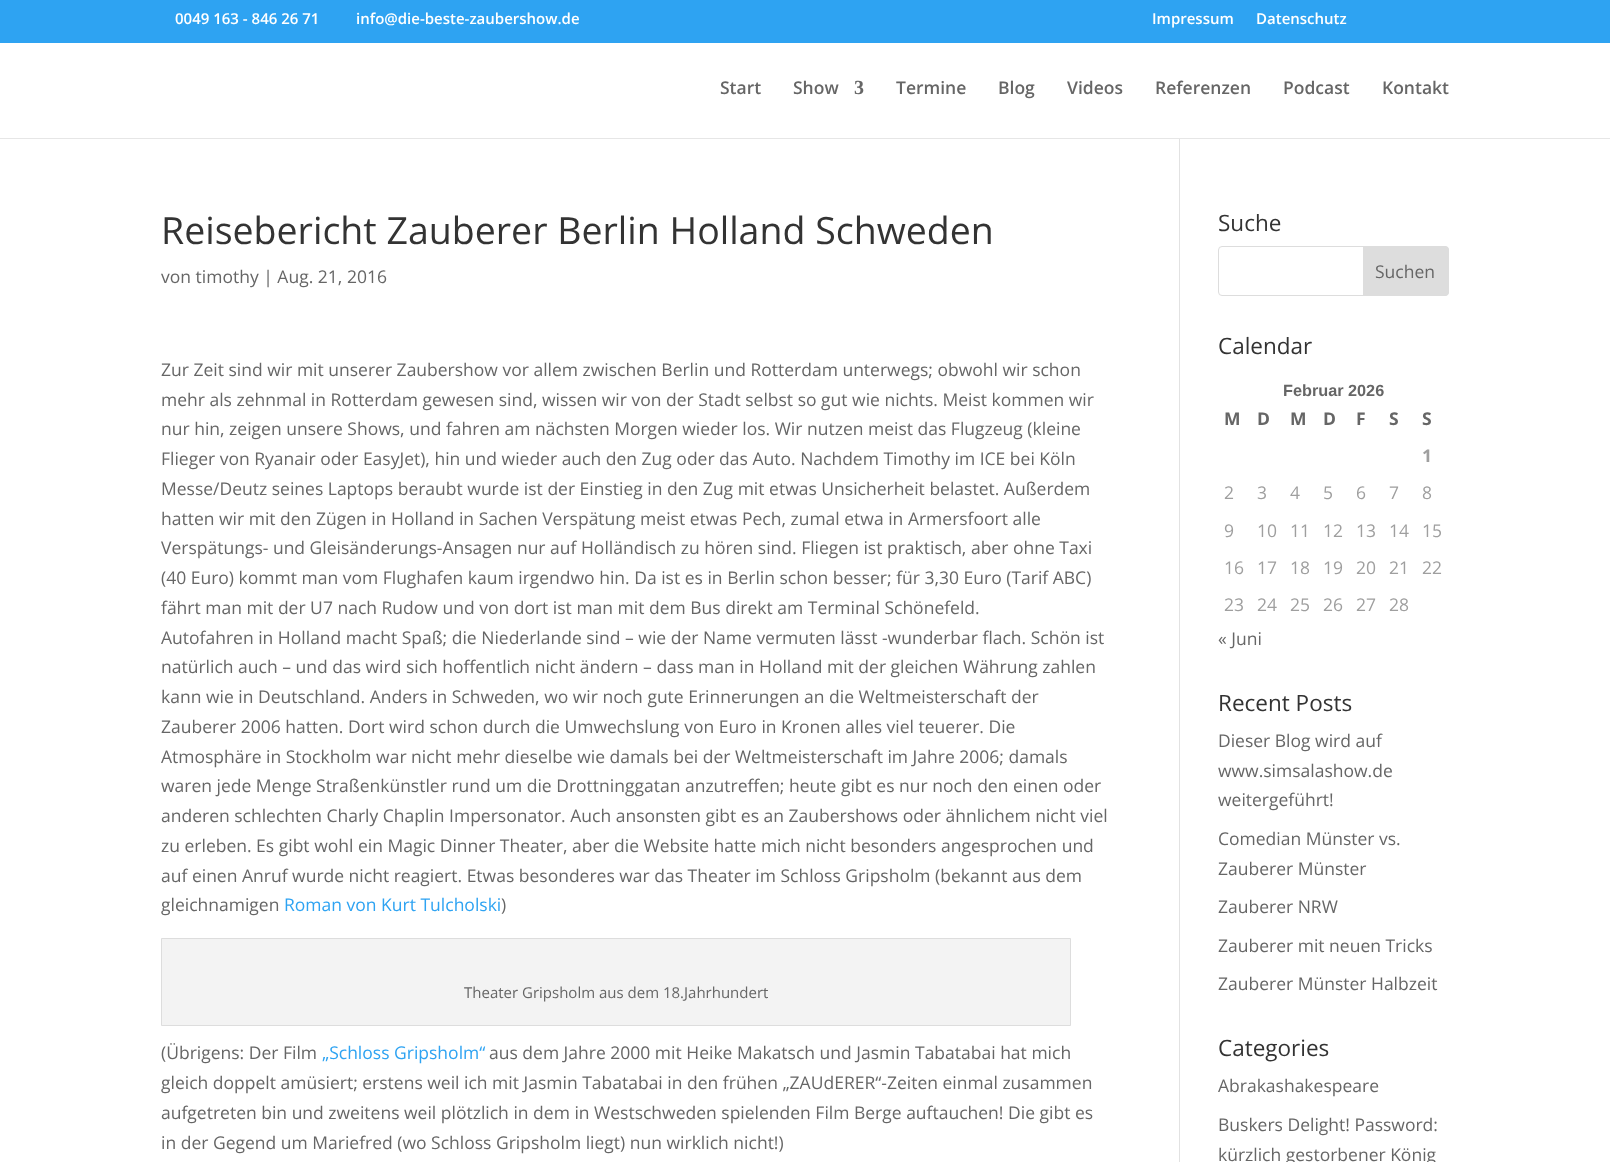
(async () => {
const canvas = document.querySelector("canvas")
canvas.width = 1610
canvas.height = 1162
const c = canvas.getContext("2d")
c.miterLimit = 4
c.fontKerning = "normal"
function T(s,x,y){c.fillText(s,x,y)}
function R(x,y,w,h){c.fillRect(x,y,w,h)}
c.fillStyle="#fff"
R(0,0,1610,1162)
c.fillStyle="#2ea3f2"
R(0,0,1610,43)
c.font="600 15px Open Sans"
c.fillStyle="#fff"
T("0049 163 - 846 26 71",175,24)
T("info@die-beste-zaubershow.de",356,24)
T("Impressum",1152,24)
T("Datenschutz",1256,24)
c.fillStyle="#e6e6e6"
R(0,138,1610,1)
c.font="600 17.5px Open Sans"
c.fillStyle="#666"
T("Start",720,94)
T("Show",793,94)
c.font="bold 20px Liberation Serif"
T("3",854,94)
c.font="600 17.5px Open Sans"
T("Termine",896,94)
T("Blog",998,94)
T("Videos",1067,94)
T("Referenzen",1155,94)
T("Podcast",1283,94)
T("Kontakt",1382,94)
c.fillStyle="#e2e2e2"
R(1179,139,1,1023)
c.font="37.5px Open Sans"
c.fillStyle="#333"
T("Reisebericht Zauberer Berlin Holland Schweden",161,244)
c.font="17.5px Open Sans"
c.fillStyle="#666"
T("von timothy | Aug. 21, 2016",161,283)
T("Zur Zeit sind wir mit unserer Zaubershow vor allem zwischen Berlin und Rotterdam unterwegs; obwohl wir schon",161,376)
T("mehr als zehnmal in Rotterdam gewesen sind, wissen wir von der Stadt selbst so gut wie nichts. Meist kommen wir",161,406)
T("nur hin, zeigen unsere Shows, und fahren am nächsten Morgen wieder los. Wir nutzen meist das Flugzeug (kleine",161,435)
T("Flieger von Ryanair oder EasyJet), hin und wieder auch den Zug oder das Auto. Nachdem Timothy im ICE bei Köln",161,465)
T("Messe/Deutz seines Laptops beraubt wurde ist der Einstieg in den Zug mit etwas Unsicherheit belastet. Außerdem",161,495)
T("hatten wir mit den Zügen in Holland in Sachen Verspätung meist etwas Pech, zumal etwa in Armersfoort alle",161,525)
T("Verspätungs- und Gleisänderungs-Ansagen nur auf Holländisch zu hören sind. Fliegen ist praktisch, aber ohne Taxi",161,554)
T("(40 Euro) kommt man vom Flughafen kaum irgendwo hin. Da ist es in Berlin schon besser; für 3,30 Euro (Tarif ABC)",161,584)
T("fährt man mit der U7 nach Rudow und von dort ist man mit dem Bus direkt am Terminal Schönefeld.",161,614)
T("Autofahren in Holland macht Spaß; die Niederlande sind – wie der Name vermuten lässt -wunderbar flach. Schön ist",161,644)
T("natürlich auch – und das wird sich hoffentlich nicht ändern – dass man in Holland mit der gleichen Währung zahlen",161,673)
T("kann wie in Deutschland. Anders in Schweden, wo wir noch gute Erinnerungen an die Weltmeisterschaft der",161,703)
T("Zauberer 2006 hatten. Dort wird schon durch die Umwechslung von Euro in Kronen alles viel teuerer. Die",161,733)
T("Atmosphäre in Stockholm war nicht mehr dieselbe wie damals bei der Weltmeisterschaft im Jahre 2006; damals",161,763)
T("waren jede Menge Straßenkünstler rund um die Drottninggatan anzutreffen; heute gibt es nur noch den einen oder",161,792)
T("anderen schlechten Charly Chaplin Impersonator. Auch ansonsten gibt es an Zaubershows oder ähnlichem nicht viel",161,822)
T("zu erleben. Es gibt wohl ein Magic Dinner Theater, aber die Website hatte mich nicht besonders angesprochen und",161,852)
T("auf einen Anruf wurde nicht reagiert. Etwas besonderes war das Theater im Schloss Gripsholm (bekannt aus dem",161,882)
T("gleichnamigen",161,911)
c.fillStyle="#2ea3f2"
T("Roman von Kurt Tulcholski",284,911)
c.fillStyle="#666"
T(")",501,911)
c.fillStyle="#f3f3f3"
c.beginPath()
c.rect(161.5,938.5,909,87)
c.fill()
c.strokeStyle="#ddd"
c.stroke()
c.font="15px Open Sans"
c.fillStyle="#666"
T("Theater Gripsholm aus dem 18.Jahrhundert",464,998)
c.font="17.5px Open Sans"
T("(Übrigens: Der Film",161,1059)
c.fillStyle="#2ea3f2"
T("„Schloss Gripsholm“",322,1059)
c.fillStyle="#666"
T("aus dem Jahre 2000 mit Heike Makatsch und Jasmin Tabatabai hat mich",489,1059)
T("gleich doppelt amüsiert; erstens weil ich mit Jasmin Tabatabai in den frühen „ZAUdERER“-Zeiten einmal zusammen",161,1089)
T("aufgetreten bin und zweitens weil plötzlich in dem in Westschweden spielenden Film Berge auftauchen! Die gibt es",161,1119)
T("in der Gegend um Mariefred (wo Schloss Gripsholm liegt) nun wirklich nicht!)",161,1149)
c.font="22.5px Open Sans"
c.fillStyle="#333"
T("Suche",1218,231)
c.beginPath()
c.roundRect(1218.5,246.5,230,49,3.5)
c.stroke()
c.fillStyle="#ddd"
c.beginPath()
c.roundRect(1363.5,246.5,85,49,[0,3.5,3.5,0])
c.fill()
c.stroke()
c.font="17.5px Open Sans"
c.fillStyle="#666"
T("Suchen",1375,278)
c.font="22.5px Open Sans"
c.fillStyle="#333"
T("Calendar",1218,354)
c.font="bold 16.25px Liberation Sans"
c.fillStyle="#666"
T("Februar 2026",1283,396)
c.font="bold 17.5px Open Sans"
T("M",1224,425)
T("D",1257,425)
T("M",1290,425)
T("D",1323,425)
T("F",1356,425)
T("S",1389,425)
T("S",1422,425)
c.fillStyle="#9f9f9f"
T("1",1422,462)
c.font="17.5px Open Sans"
T("2",1224,499)
T("3",1257,499)
T("4",1290,499)
T("5",1323,499)
T("6",1356,499)
T("7",1389,499)
T("8",1422,499)
T("9",1224,537)
T("10",1257,537)
T("11",1290,537)
T("12",1323,537)
T("13",1356,537)
T("14",1389,537)
T("15",1422,537)
T("16",1224,574)
T("17",1257,574)
T("18",1290,574)
T("19",1323,574)
T("20",1356,574)
T("21",1389,574)
T("22",1422,574)
T("23",1224,611)
T("24",1257,611)
T("25",1290,611)
T("26",1323,611)
T("27",1356,611)
T("28",1389,611)
c.fillStyle="#666"
T("« Juni",1218,645)
c.font="22.5px Open Sans"
c.fillStyle="#333"
T("Recent Posts",1218,711)
c.font="17.5px Open Sans"
c.fillStyle="#666"
T("Dieser Blog wird auf",1218,747)
T("www.simsalashow.de",1218,777)
T("weitergeführt!",1218,806)
T("Comedian Münster vs.",1218,845)
T("Zauberer Münster",1218,875)
T("Zauberer NRW",1218,913)
T("Zauberer mit neuen Tricks",1218,952)
T("Zauberer Münster Halbzeit",1218,990)
c.font="22.5px Open Sans"
c.fillStyle="#333"
T("Categories",1218,1056)
c.font="17.5px Open Sans"
c.fillStyle="#666"
T("Abrakashakespeare",1218,1092)
T("Buskers Delight! Password:",1218,1131)
T("kürzlich gestorbener König",1218,1161)
})()
